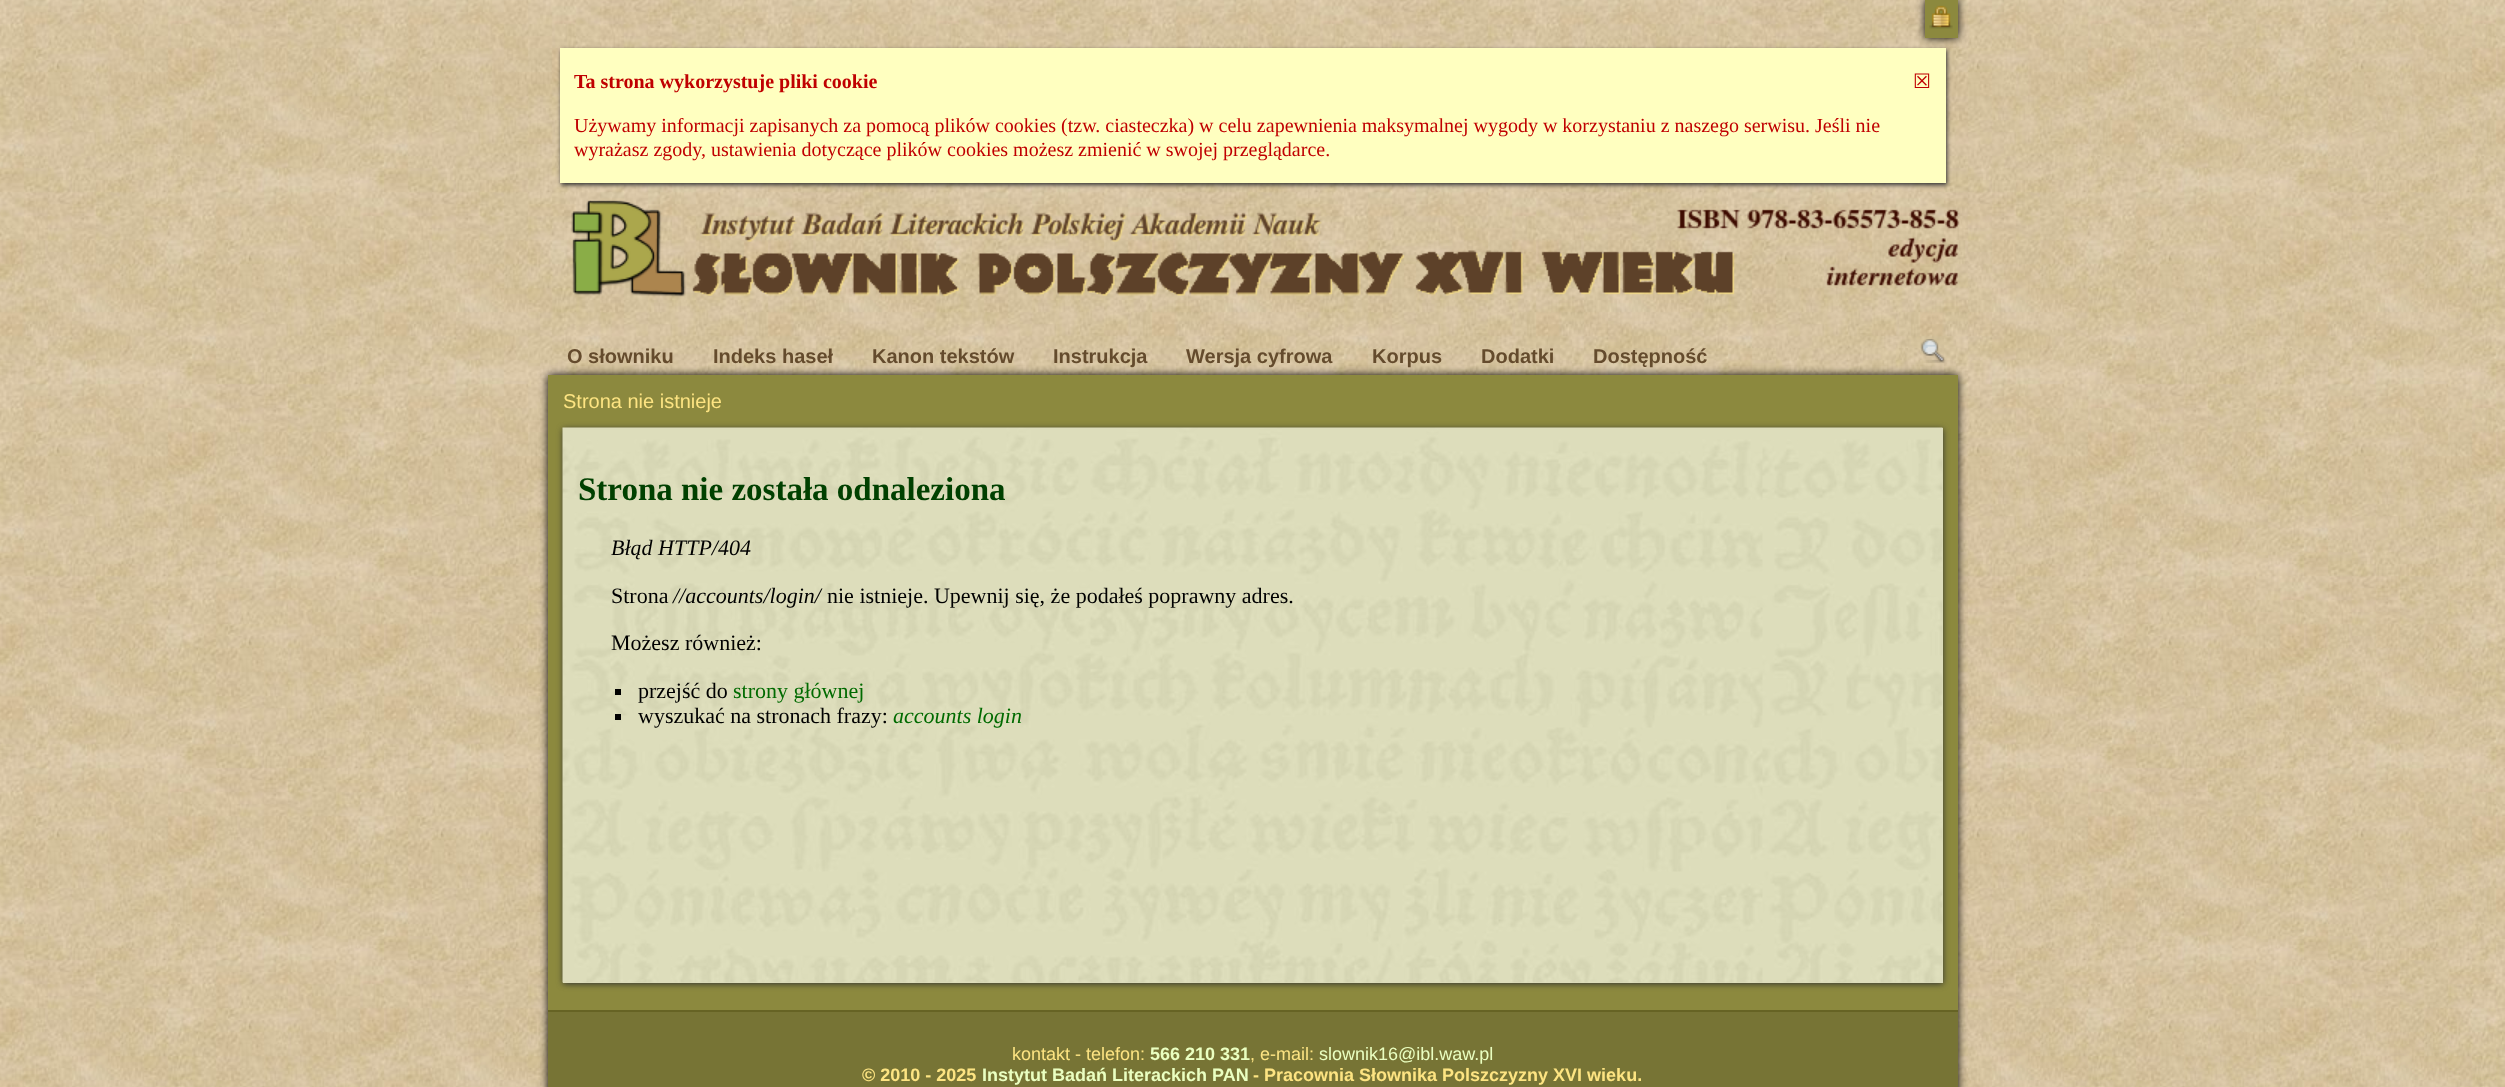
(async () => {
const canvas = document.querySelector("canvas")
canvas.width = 2505
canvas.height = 1087
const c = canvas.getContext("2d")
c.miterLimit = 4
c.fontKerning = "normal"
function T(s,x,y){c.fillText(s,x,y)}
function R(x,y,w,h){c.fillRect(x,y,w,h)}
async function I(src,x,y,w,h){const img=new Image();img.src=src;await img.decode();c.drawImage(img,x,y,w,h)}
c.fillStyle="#fff"
R(0,0,2505,1087)
await I("1.png",0,0,2505,1087)
c.fillStyle="#000"
c.filter="blur(4.5px)"
c.beginPath()
c.rect(1925,0,33,38)
c.fill()
c.filter="none"
c.fillStyle="#8c893e"
R(1925,0,33,38)
await I("2.png",1929,5,24,24)
c.fillStyle="#333"
c.filter="blur(2px)"
c.beginPath()
c.rect(561,50,1386,135)
c.fill()
c.filter="none"
c.fillStyle="#ffffc0"
R(560,48,1386,135)
c.font="bold 20px Liberation Serif"
c.fillStyle="#c00000"
T("Ta strona wykorzystuje pliki cookie",574,88)
c.font="20px DejaVu Sans"
T("☒",1913,88)
c.font="20px Liberation Serif"
T("Używamy informacji zapisanych za pomocą plików cookies (tzw. ciasteczka) w celu zapewnienia maksymalnej wygody w korzystaniu z naszego serwisu. Jeśli nie",574,132)
T("wyrażasz zgody, ustawienia dotyczące plików cookies możesz zmienić w swojej przeglądarce.",574,156)
await I("3.png",571,200,1389,97)
c.fillStyle="#000"
c.filter="blur(4.5px)"
c.beginPath()
c.rect(548,375,1410,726)
c.fill()
c.filter="none"
c.font="bold 20px Liberation Sans"
c.fillStyle="#644b2d"
T("O słowniku",567,363)
T("Indeks haseł",713,363)
T("Kanon tekstów",872,363)
T("Instrukcja",1053,363)
T("Wersja cyfrowa",1186,363)
T("Korpus",1372,363)
T("Dodatki",1481,363)
T("Dostępność",1593,363)
await I("4.png",1921,339,25,24)
c.fillStyle="#8c893e"
R(548,375,1410,635)
c.font="20px Liberation Sans"
c.fillStyle="#fde482"
T("Strona nie istnieje",563,408)
c.fillStyle="#333"
c.filter="blur(3px)"
c.beginPath()
c.rect(563,429,1380,555)
c.fill()
c.filter="none"
c.fillStyle="#ddb"
R(563,428,1380,555)
await I("5.png",562,427,1381,556)
c.font="bold 33px Liberation Serif"
c.fillStyle="#004000"
T("Strona nie została odnaleziona",578,500)
c.font="italic 22px Liberation Serif"
c.fillStyle="#000"
T("Błąd HTTP/404",611,555)
c.font="22px Liberation Serif"
T("Strona",611,603)
c.font="italic 22px Liberation Serif"
T("//accounts/login/",673,603)
c.font="22px Liberation Serif"
T("nie istnieje. Upewnij się, że podałeś poprawny adres.",827,603)
T("Możesz również:",611,650)
R(615,689,6,6)
T("przejść do",638,698)
c.fillStyle="#006a00"
T("strony głównej",733,698)
c.fillStyle="#000"
R(615,714,6,6)
T("wyszukać na stronach frazy:",638,723)
c.font="italic 22px Liberation Serif"
c.fillStyle="#006a00"
T("accounts login",893,723)
c.fillStyle="#777435"
R(548,1012,1410,75)
c.fillStyle="#666324"
R(548,1010,1410,2)
c.font="18px Liberation Sans"
c.fillStyle="#fde482"
T("kontakt - telefon:",1012,1060)
c.font="bold 18px Liberation Sans"
c.fillStyle="#eaffc1"
T("566 210 331",1150,1060)
c.font="18px Liberation Sans"
c.fillStyle="#fde482"
T(", e-mail:",1250,1060)
c.fillStyle="#eaffc1"
T("slownik16@ibl.waw.pl",1319,1060)
c.font="bold 18px Liberation Sans"
c.fillStyle="#fde482"
T("© 2010 - 2025",862,1081)
c.fillStyle="#eaffc1"
T("Instytut Badań Literackich PAN",982,1081)
c.fillStyle="#fde482"
T("- Pracownia Słownika Polszczyzny XVI wieku.",1253,1081)
})()
